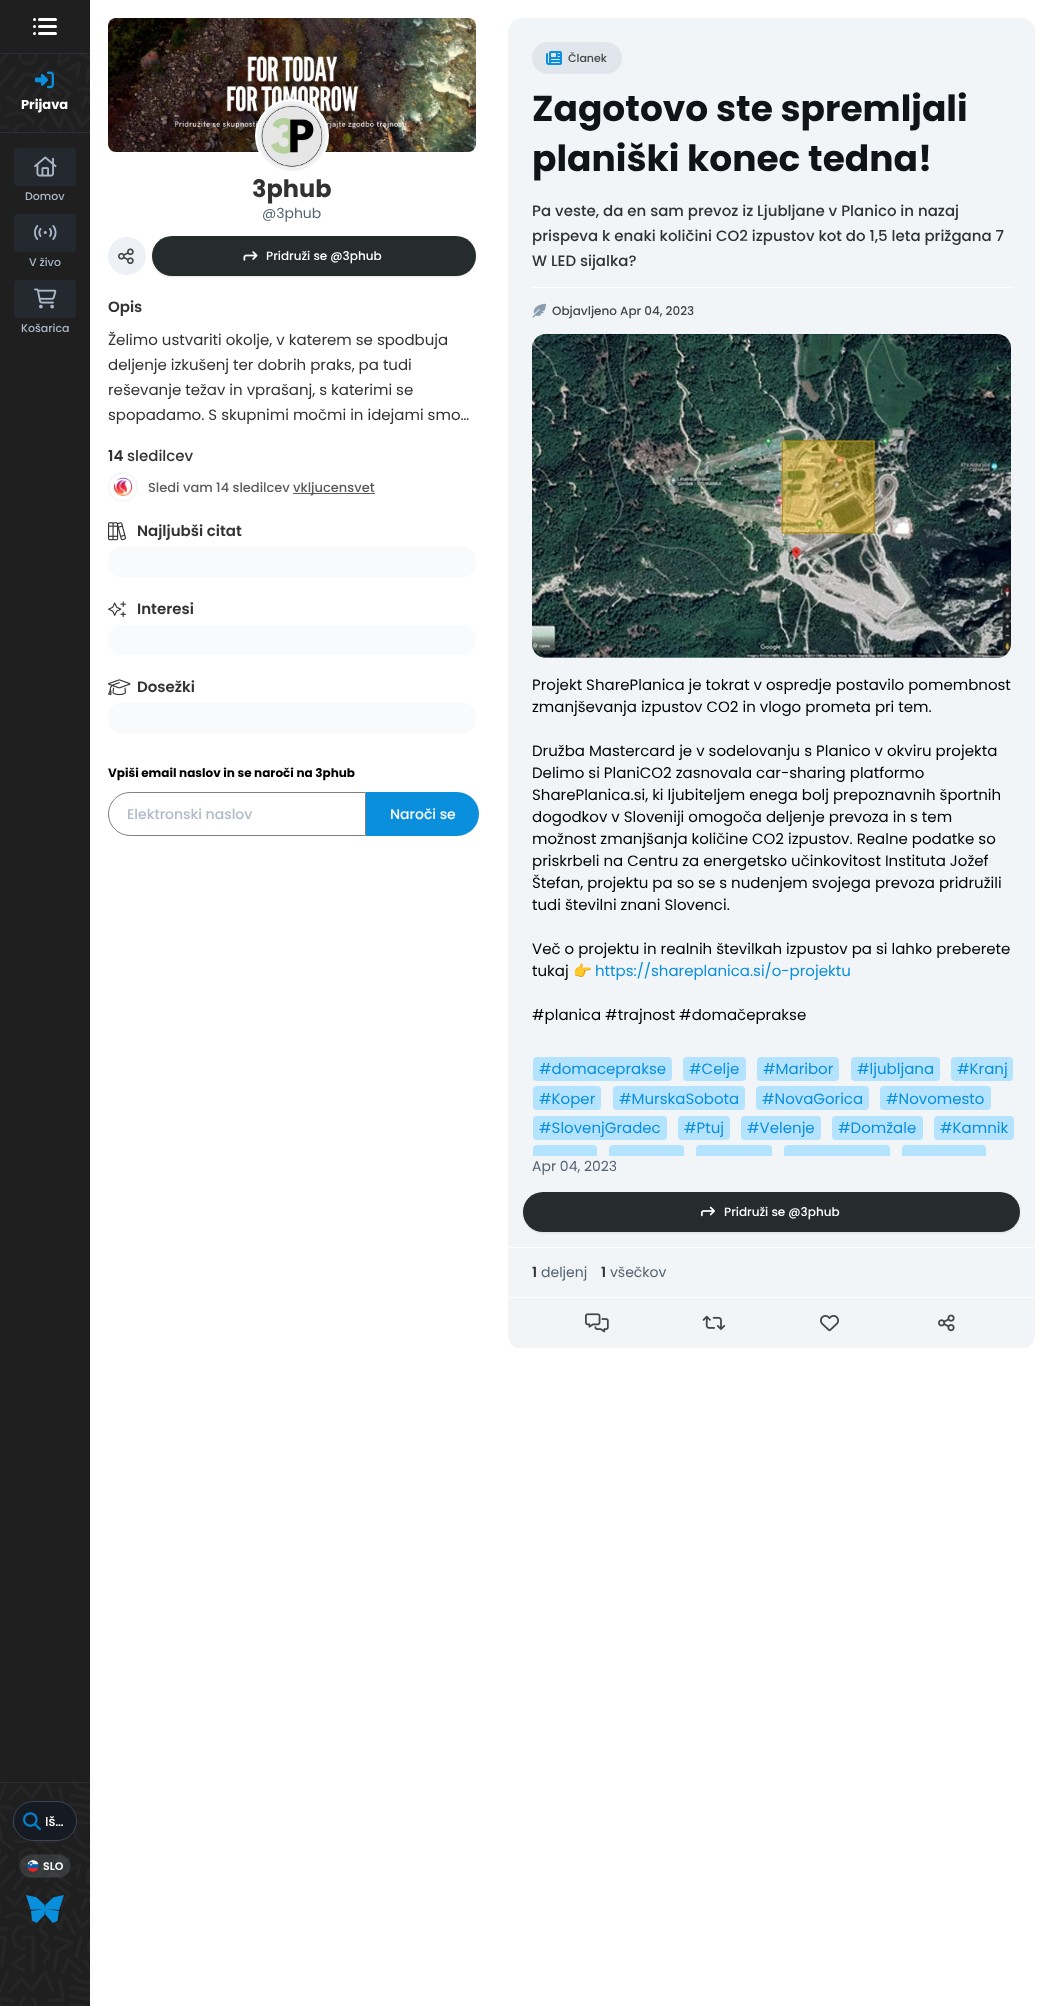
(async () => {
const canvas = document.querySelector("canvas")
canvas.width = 1053
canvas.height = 2006
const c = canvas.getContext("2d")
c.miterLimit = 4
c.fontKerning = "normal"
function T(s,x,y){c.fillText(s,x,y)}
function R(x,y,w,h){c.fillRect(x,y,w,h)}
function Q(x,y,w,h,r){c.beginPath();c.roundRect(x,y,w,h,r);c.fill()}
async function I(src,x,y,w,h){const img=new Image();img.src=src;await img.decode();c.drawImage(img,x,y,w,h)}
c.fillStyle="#fff"
R(0,0,1053,2006)
c.fillStyle="#1f1f1f"
R(0,0,90,2006)
c.fillStyle="#fff"
c.beginPath()
c.arc(34.5,19.5,1.5,0,7)
c.fill()
Q(38,18,19,3,1.5)
c.beginPath()
c.arc(34.5,26.5,1.5,0,7)
c.fill()
Q(38,25,19,3,1.5)
c.beginPath()
c.arc(34.5,33.5,1.5,0,7)
c.fill()
Q(38,32,19,3,1.5)
await I("1.png",0,54,90,78)
c.fillStyle="#28303a"
R(0,53,90,1)
R(0,132,90,1)
await I("2.png",35,71,19,18)
c.font="bold 13px Poppins"
c.fillStyle="#fff"
T("Prijava",21,109)
c.fillStyle="#24282f"
Q(14,148,62,38,4)
await I("3.png",34,156,23,21)
c.font="500 11px Poppins"
c.fillStyle="#aab7c7"
T("Domov",25,200)
c.fillStyle="#24282f"
Q(14,214,62,38,4)
await I("4.png",34,225,23,15)
c.fillStyle="#aab7c7"
T("V živo",29,266)
c.fillStyle="#24282f"
Q(14,280,62,38,4)
await I("5.png",34,288,23,21)
c.fillStyle="#aab7c7"
T("Košarica",21,332)
await I("6.png",0,1783,90,223)
c.fillStyle="#2d2e30"
R(0,1782,90,1)
c.fillStyle="#161a22"
c.beginPath()
c.roundRect(13.5,1801.5,63,39,19.5)
c.fill()
c.strokeStyle="#3b4753"
c.stroke()
await I("7.png",23,1812,18,19)
c.font="500 13px Poppins"
c.fillStyle="#fff"
T("Iš…",45,1826)
c.fillStyle="#a2a7ac33"
c.beginPath()
c.roundRect(19.5,1854.5,51,23,11.5)
c.fill()
c.strokeStyle="#2a3033"
c.stroke()
await I("8.png",27,1860,12,12)
c.font="600 11px Poppins"
c.fillStyle="#fff"
T("SLO",43,1870)
await I("9.png",26,1895,38,28)
await I("10.png",108,18,368,134)
c.beginPath()
c.arc(292,136,36,0,7)
c.fill()
c.strokeStyle="#fff"
c.lineWidth=2
c.stroke()
c.beginPath()
c.arc(292,136,33.5,0,7)
c.strokeStyle="#eff2f4"
c.lineWidth=3
c.stroke()
await I("11.png",260,104,64,64)
c.font="bold 24px Poppins"
c.fillStyle="#323232"
T("3phub",252,197)
c.font="14px Poppins"
c.fillStyle="#546470"
T("@3phub",262,218)
c.fillStyle="#edf1f6"
c.beginPath()
c.arc(127,256,19,0,7)
c.fill()
await I("12.png",118,248,16,17)
c.fillStyle="#0000001a"
c.filter="blur(1px)"
c.beginPath()
c.roundRect(152,237,324,40,20)
c.fill()
c.filter="none"
c.fillStyle="#262b2e"
Q(152,236,324,40,20)
await I("13.png",243,251,15,10)
c.font="500 12px Poppins"
c.fillStyle="#fff"
T("Pridruži se @3phub",266,260)
c.font="600 15px Poppins"
c.fillStyle="#323232"
T("Opis",108,312)
c.font="15px Poppins"
T("Želimo ustvariti okolje, v katerem se spodbuja",108,345)
T("deljenje izkušenj ter dobrih praks, pa tudi",108,370)
T("reševanje težav in vprašanj, s katerimi se",108,395)
T("spopadamo. S skupnimi močmi in idejami smo…",108,420)
c.font="600 15px Poppins"
T("14",108,461)
c.font="500 15px Poppins"
T("sledilcev",127,461)
c.beginPath()
c.arc(123,487,14,0,7)
c.strokeStyle="#f5f7f8"
c.lineWidth=2
c.stroke()
await I("14.png",113,477,20,20)
c.font="500 13px Poppins"
c.fillStyle="#5b5b5b"
T("Sledi vam 14 sledilcev",148,492)
R(293,493,82,1)
T("vkljucensvet",293,492)
await I("15.png",108,522,18,19)
c.font="600 15px Poppins"
c.fillStyle="#323232"
T("Najljubši citat",137,536)
c.fillStyle="#f8fafc"
Q(108,547,368,30,14)
await I("16.png",108,601,18,17)
c.fillStyle="#323232"
T("Interesi",137,614)
c.fillStyle="#f8fafc"
Q(108,625,368,30,14)
await I("17.png",108,679,23,17)
c.fillStyle="#323232"
T("Dosežki",137,692)
c.fillStyle="#f8fafc"
Q(108,703,368,30,14)
c.font="bold 12px Poppins"
c.fillStyle="#000"
T("Vpiši email naslov in se naroči na 3phub",108,777)
c.beginPath()
c.roundRect(108.5,792.5,257,43,[21.5,0,0,21.5])
c.strokeStyle="#808080"
c.lineWidth=1
c.stroke()
c.font="500 14px Poppins"
c.fillStyle="#b0bbc7"
T("Elektronski naslov",127,819)
c.fillStyle="#0a8fdd"
c.beginPath()
c.roundRect(366,792,113,44,[0,22,22,0])
c.fill()
c.fillStyle="#fff"
T("Naroči se",390,819)
c.fillStyle="#f2f5f8"
Q(508,18,527,1331,14)
c.fillStyle="#e0e6ec"
Q(532,42,90,32,16)
await I("18.png",546,51,16,14)
c.font="500 11px Poppins"
c.fillStyle="#444647"
T("Članek",568,62)
c.font="bold 36px Poppins"
c.fillStyle="#0f1419"
T("Zagotovo ste spremljali",532,121)
T("planiški konec tedna!",532,171)
c.font="500 15px Poppins"
c.fillStyle="#323232"
T("Pa veste, da en sam prevoz iz Ljubljane v Planico in nazaj",532,216)
T("prispeva k enaki količini CO2 izpustov kot do 1,5 leta prižgana 7",532,241)
T("W LED sijalka?",532,266)
c.fillStyle="#fff"
R(532,287,479,1)
await I("19.png",532,303,14,15)
c.font="500 12px Poppins"
c.fillStyle="#444647"
T("Objavljeno Apr 04, 2023",552,315)
await I("20.png",532,334,479,324)
c.font="15px Poppins"
c.fillStyle="#000"
T("Projekt SharePlanica je tokrat v ospredje postavilo pomembnost",532,690)
T("zmanjševanja izpustov CO2 in vlogo prometa pri tem.",532,712)
T("Družba Mastercard je v sodelovanju s Planico v okviru projekta",532,756)
T("Delimo si PlaniCO2 zasnovala car-sharing platformo",532,778)
T("SharePlanica.si, ki ljubiteljem enega bolj prepoznavnih športnih",532,800)
T("dogodkov v Sloveniji omogoča deljenje prevoza in s tem",532,822)
T("možnost zmanjšanja količine CO2 izpustov. Realne podatke so",532,844)
T("priskrbeli na Centru za energetsko učinkovitost Instituta Jožef",532,866)
T("Štefan, projektu pa so se s nudenjem svojega prevoza pridružili",532,888)
T("tudi številni znani Slovenci.",532,910)
T("Več o projektu in realnih številkah izpustov pa si lahko preberete",532,954)
T("tukaj",532,976)
c.font="15px Noto Color Emoji"
T("👉",573,976)
c.font="15px Poppins"
c.fillStyle="#0a8fdd"
T("https://shareplanica.si/o-projektu",595,976)
c.fillStyle="#000"
T("#planica #trajnost #domačeprakse",532,1020)
c.fillStyle="#b4e3ff"
Q(533,1057,139,24,4)
c.fillStyle="#0a8fdd"
T("#domaceprakse",539,1074)
c.fillStyle="#b4e3ff"
Q(683,1057,63,24,4)
c.fillStyle="#0a8fdd"
T("#Celje",689,1074)
c.fillStyle="#b4e3ff"
Q(757,1057,82,24,4)
c.fillStyle="#0a8fdd"
T("#Maribor",763,1074)
c.fillStyle="#b4e3ff"
Q(851,1057,89,24,4)
c.fillStyle="#0a8fdd"
T("#ljubljana",857,1074)
c.fillStyle="#b4e3ff"
Q(951,1057,62,24,4)
c.fillStyle="#0a8fdd"
T("#Kranj",957,1074)
c.fillStyle="#b4e3ff"
Q(533,1086,68,24,4)
c.fillStyle="#0a8fdd"
T("#Koper",539,1104)
c.fillStyle="#b4e3ff"
Q(613,1086,132,24,4)
c.fillStyle="#0a8fdd"
T("#MurskaSobota",619,1104)
c.fillStyle="#b4e3ff"
Q(756,1086,113,24,4)
c.fillStyle="#0a8fdd"
T("#NovaGorica",762,1104)
c.fillStyle="#b4e3ff"
Q(880,1086,111,24,4)
c.fillStyle="#0a8fdd"
T("#Novomesto",886,1104)
c.fillStyle="#b4e3ff"
Q(533,1116,134,24,4)
c.fillStyle="#0a8fdd"
T("#SlovenjGradec",539,1133)
c.fillStyle="#b4e3ff"
Q(678,1116,52,24,4)
c.fillStyle="#0a8fdd"
T("#Ptuj",684,1133)
c.fillStyle="#b4e3ff"
Q(741,1116,80,24,4)
c.fillStyle="#0a8fdd"
T("#Velenje",747,1133)
c.fillStyle="#b4e3ff"
Q(832,1116,91,24,4)
c.fillStyle="#0a8fdd"
T("#Domžale",838,1133)
c.fillStyle="#b4e3ff"
Q(934,1116,80,24,4)
c.fillStyle="#0a8fdd"
T("#Kamnik",940,1133)
c.fillStyle="#b4e3ff"
c.beginPath()
c.roundRect(533,1145,64,11,[4,4,0,0])
c.fill()
c.beginPath()
c.roundRect(609,1145,75,11,[4,4,0,0])
c.fill()
c.beginPath()
c.roundRect(696,1145,76,11,[4,4,0,0])
c.fill()
c.beginPath()
c.roundRect(784,1145,106,11,[4,4,0,0])
c.fill()
c.beginPath()
c.roundRect(902,1145,84,11,[4,4,0,0])
c.fill()
c.font="14px Poppins"
c.fillStyle="#546470"
T("Apr 04, 2023",532,1171)
c.fillStyle="#0000001a"
c.filter="blur(1px)"
c.beginPath()
c.roundRect(523,1193,497,40,20)
c.fill()
c.filter="none"
c.fillStyle="#262b2e"
Q(523,1192,497,40,20)
await I("21.png",701,1206,14,11)
c.font="500 12px Poppins"
c.fillStyle="#fff"
T("Pridruži se @3phub",724,1216)
R(508,1247,527,1)
c.font="600 14px Poppins"
c.fillStyle="#323232"
T("1",532,1277)
c.font="14px Poppins"
c.fillStyle="#546470"
T("deljenj",541,1277)
c.font="600 14px Poppins"
c.fillStyle="#323232"
T("1",601,1277)
c.font="14px Poppins"
c.fillStyle="#546470"
T("všečkov",610,1277)
c.fillStyle="#fff"
R(508,1297,527,1)
R(518,1348,507,1)
await I("22.png",585,1313,24,20)
await I("23.png",702,1315,24,15)
await I("24.png",820,1315,19,17)
await I("25.png",938,1314,17,18)
})()
